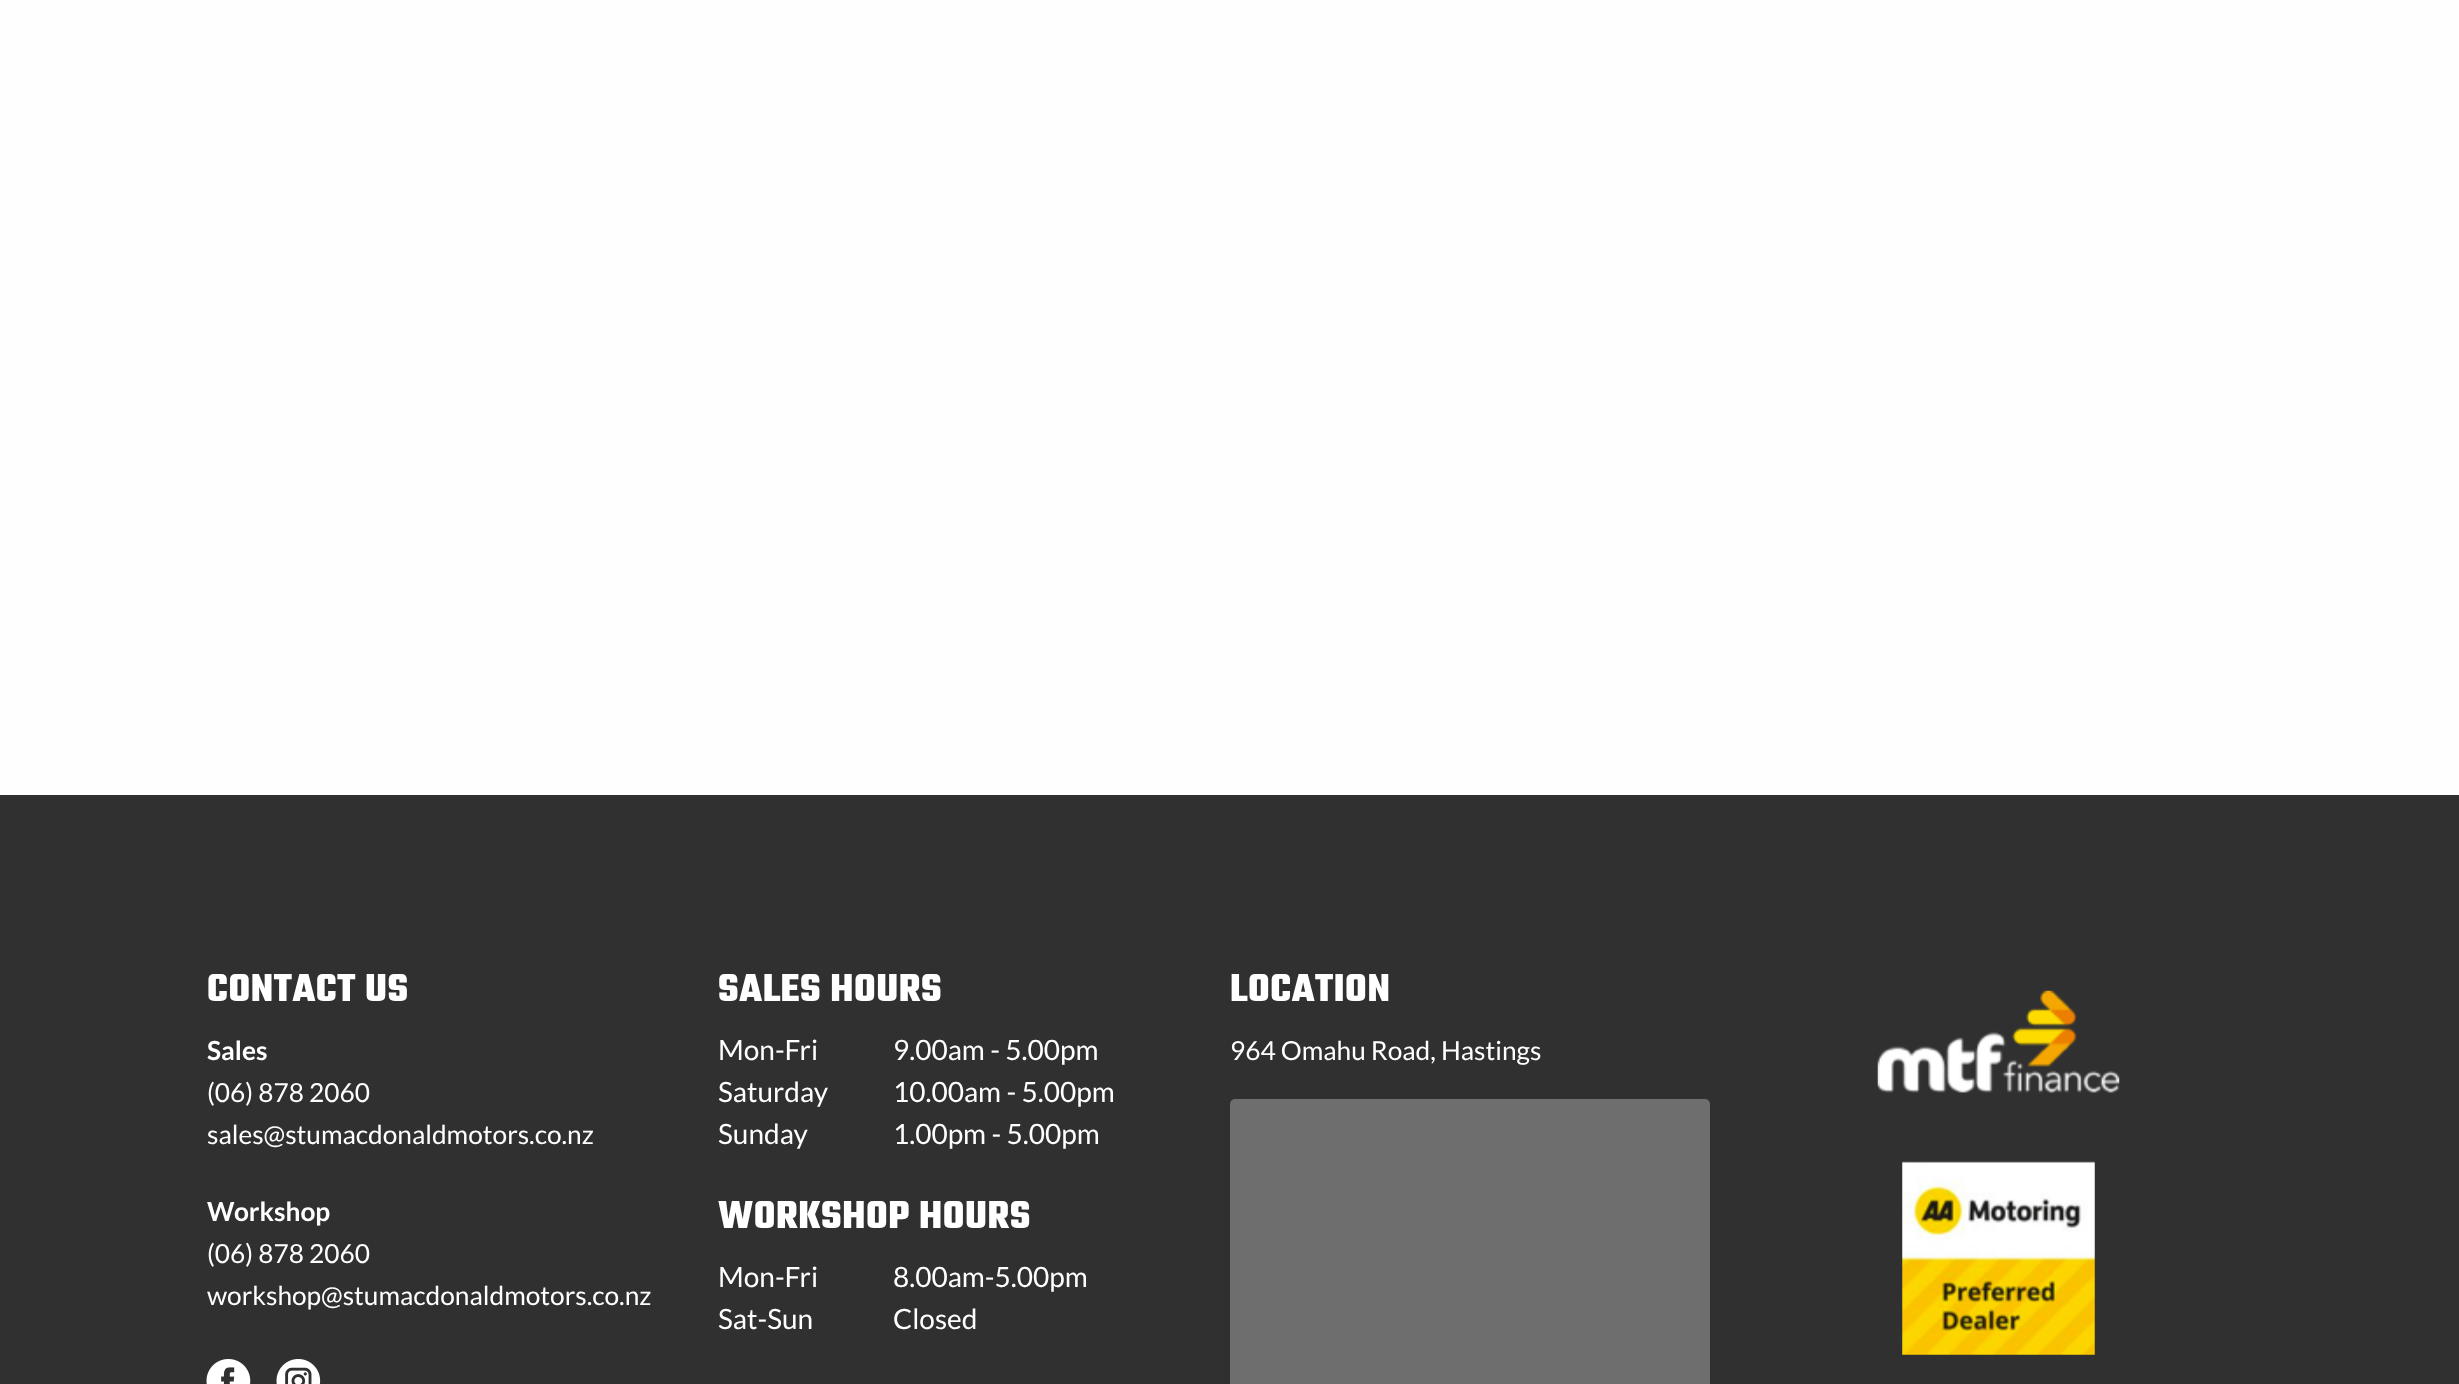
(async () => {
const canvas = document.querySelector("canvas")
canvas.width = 2459
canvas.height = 1384
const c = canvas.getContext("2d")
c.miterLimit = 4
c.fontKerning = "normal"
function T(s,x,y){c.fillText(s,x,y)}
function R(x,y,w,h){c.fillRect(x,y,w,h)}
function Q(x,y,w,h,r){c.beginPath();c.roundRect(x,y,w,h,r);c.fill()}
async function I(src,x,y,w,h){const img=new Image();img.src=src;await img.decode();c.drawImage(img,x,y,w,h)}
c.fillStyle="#fefefe"
R(0,0,2459,1384)
c.fillStyle="#303030"
R(0,795,2459,589)
c.letterSpacing="0.6px"
c.font="bold 42px Teko"
c.fillStyle="#fff"
T("CONTACT US",207,1001)
c.letterSpacing="0px"
c.font="bold 26.25px Lato"
T("Sales",207,1060)
c.font="26.25px Lato"
T("(06) 878 2060",207,1102)
T("sales@stumacdonaldmotors.co.nz",207,1144)
c.font="bold 26.25px Lato"
T("Workshop",207,1221)
c.font="26.25px Lato"
T("(06) 878 2060",207,1263)
T("workshop@stumacdonaldmotors.co.nz",207,1305)
await I("1.png",206,1359,45,25)
await I("2.png",276,1359,45,25)
c.letterSpacing="0.6px"
c.font="bold 42px Teko"
T("SALES HOURS",718,1001)
c.letterSpacing="0px"
c.font="28px Lato"
T("Mon-Fri",718,1060)
T("9.00am - 5.00pm",893,1060)
T("Saturday",718,1102)
T("10.00am - 5.00pm",893,1102)
T("Sunday",718,1144)
T("1.00pm - 5.00pm",893,1144)
c.letterSpacing="0.6px"
c.font="bold 42px Teko"
T("WORKSHOP HOURS",718,1228)
c.letterSpacing="0px"
c.font="28px Lato"
T("Mon-Fri",718,1287)
T("8.00am-5.00pm",893,1287)
T("Sat-Sun",718,1329)
T("Closed",893,1329)
c.letterSpacing="0.6px"
c.font="bold 42px Teko"
T("LOCATION",1230,1001)
c.letterSpacing="0px"
c.font="26.25px Lato"
T("964 Omahu Road, Hastings",1230,1060)
c.fillStyle="#6e6e6e"
Q(1230,1099,480,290,5)
await I("3.png",1877,990,243,103)
await I("4.png",1902,1161,193,194)
})()
